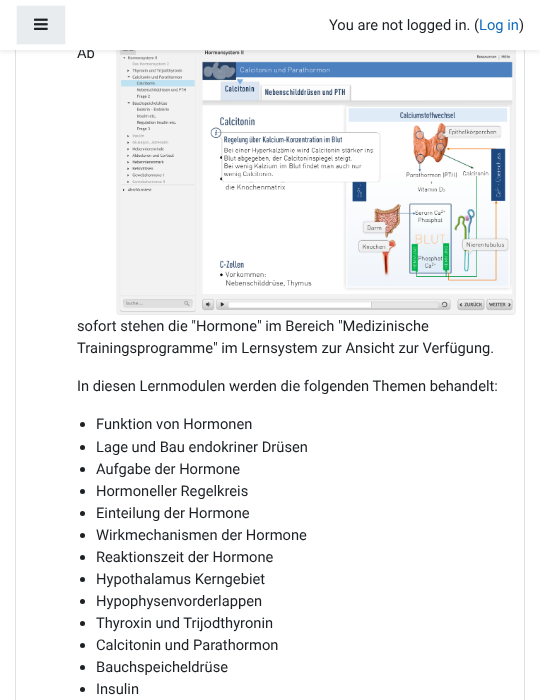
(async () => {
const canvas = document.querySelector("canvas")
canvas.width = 540
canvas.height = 700
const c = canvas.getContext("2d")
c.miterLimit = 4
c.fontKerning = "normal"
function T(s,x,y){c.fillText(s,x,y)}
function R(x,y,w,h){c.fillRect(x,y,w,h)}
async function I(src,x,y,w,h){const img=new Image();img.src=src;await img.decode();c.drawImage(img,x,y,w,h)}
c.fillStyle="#fff"
R(0,0,540,700)
c.strokeStyle="#dee2e6"
c.strokeRect(15.5,-.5,509,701)
await I("2.png",116,50,400,265)
c.fillStyle="#00000014"
c.filter="blur(2px)"
c.beginPath()
c.rect(0,2,540,50)
c.fill()
c.filter="none"
c.font="14.7px Roboto"
c.fillStyle="#1d2125"
T("Ab",77,58)
c.fillStyle="#fff"
R(0,0,540,50)
c.fillStyle="#e9ecef"
c.beginPath()
c.rect(16.5,5.5,49,39)
c.fill()
c.strokeStyle="#f8f9fa"
c.stroke()
await I("1.png",34,18,14,12)
c.fillStyle="#1d2125"
T("You are not logged in. (",329,30)
c.fillStyle="#0f6cbf"
T("Log in",479,30)
c.fillStyle="#1d2125"
T(")",519,30)
T("sofort stehen die \"Hormone\" im Bereich \"Medizinische",77,331)
T("Trainingsprogramme\" im Lernsystem zur Ansicht zur Verfügung.",77,353)
T("In diesen Lernmodulen werden die folgenden Themen behandelt:",77,391)
c.beginPath()
c.arc(82.5,424.5,2.5,0,7)
c.fill()
T("Funktion von Hormonen",96,429)
c.beginPath()
c.arc(82.5,447.5,2.5,0,7)
c.fill()
T("Lage und Bau endokriner Drüsen",96,452)
c.beginPath()
c.arc(82.5,469.5,2.5,0,7)
c.fill()
T("Aufgabe der Hormone",96,474)
c.beginPath()
c.arc(82.5,491.5,2.5,0,7)
c.fill()
T("Hormoneller Regelkreis",96,496)
c.beginPath()
c.arc(82.5,513.5,2.5,0,7)
c.fill()
T("Einteilung der Hormone",96,518)
c.beginPath()
c.arc(82.5,535.5,2.5,0,7)
c.fill()
T("Wirkmechanismen der Hormone",96,540)
c.beginPath()
c.arc(82.5,557.5,2.5,0,7)
c.fill()
T("Reaktionszeit der Hormone",96,562)
c.beginPath()
c.arc(82.5,579.5,2.5,0,7)
c.fill()
T("Hypothalamus Kerngebiet",96,584)
c.beginPath()
c.arc(82.5,601.5,2.5,0,7)
c.fill()
T("Hypophysenvorderlappen",96,606)
c.beginPath()
c.arc(82.5,623.5,2.5,0,7)
c.fill()
T("Thyroxin und Trijodthyronin",96,628)
c.beginPath()
c.arc(82.5,645.5,2.5,0,7)
c.fill()
T("Calcitonin und Parathormon",96,650)
c.beginPath()
c.arc(82.5,667.5,2.5,0,7)
c.fill()
T("Bauchspeicheldrüse",96,672)
c.beginPath()
c.arc(82.5,689.5,2.5,0,7)
c.fill()
T("Insulin",96,694)
})()
